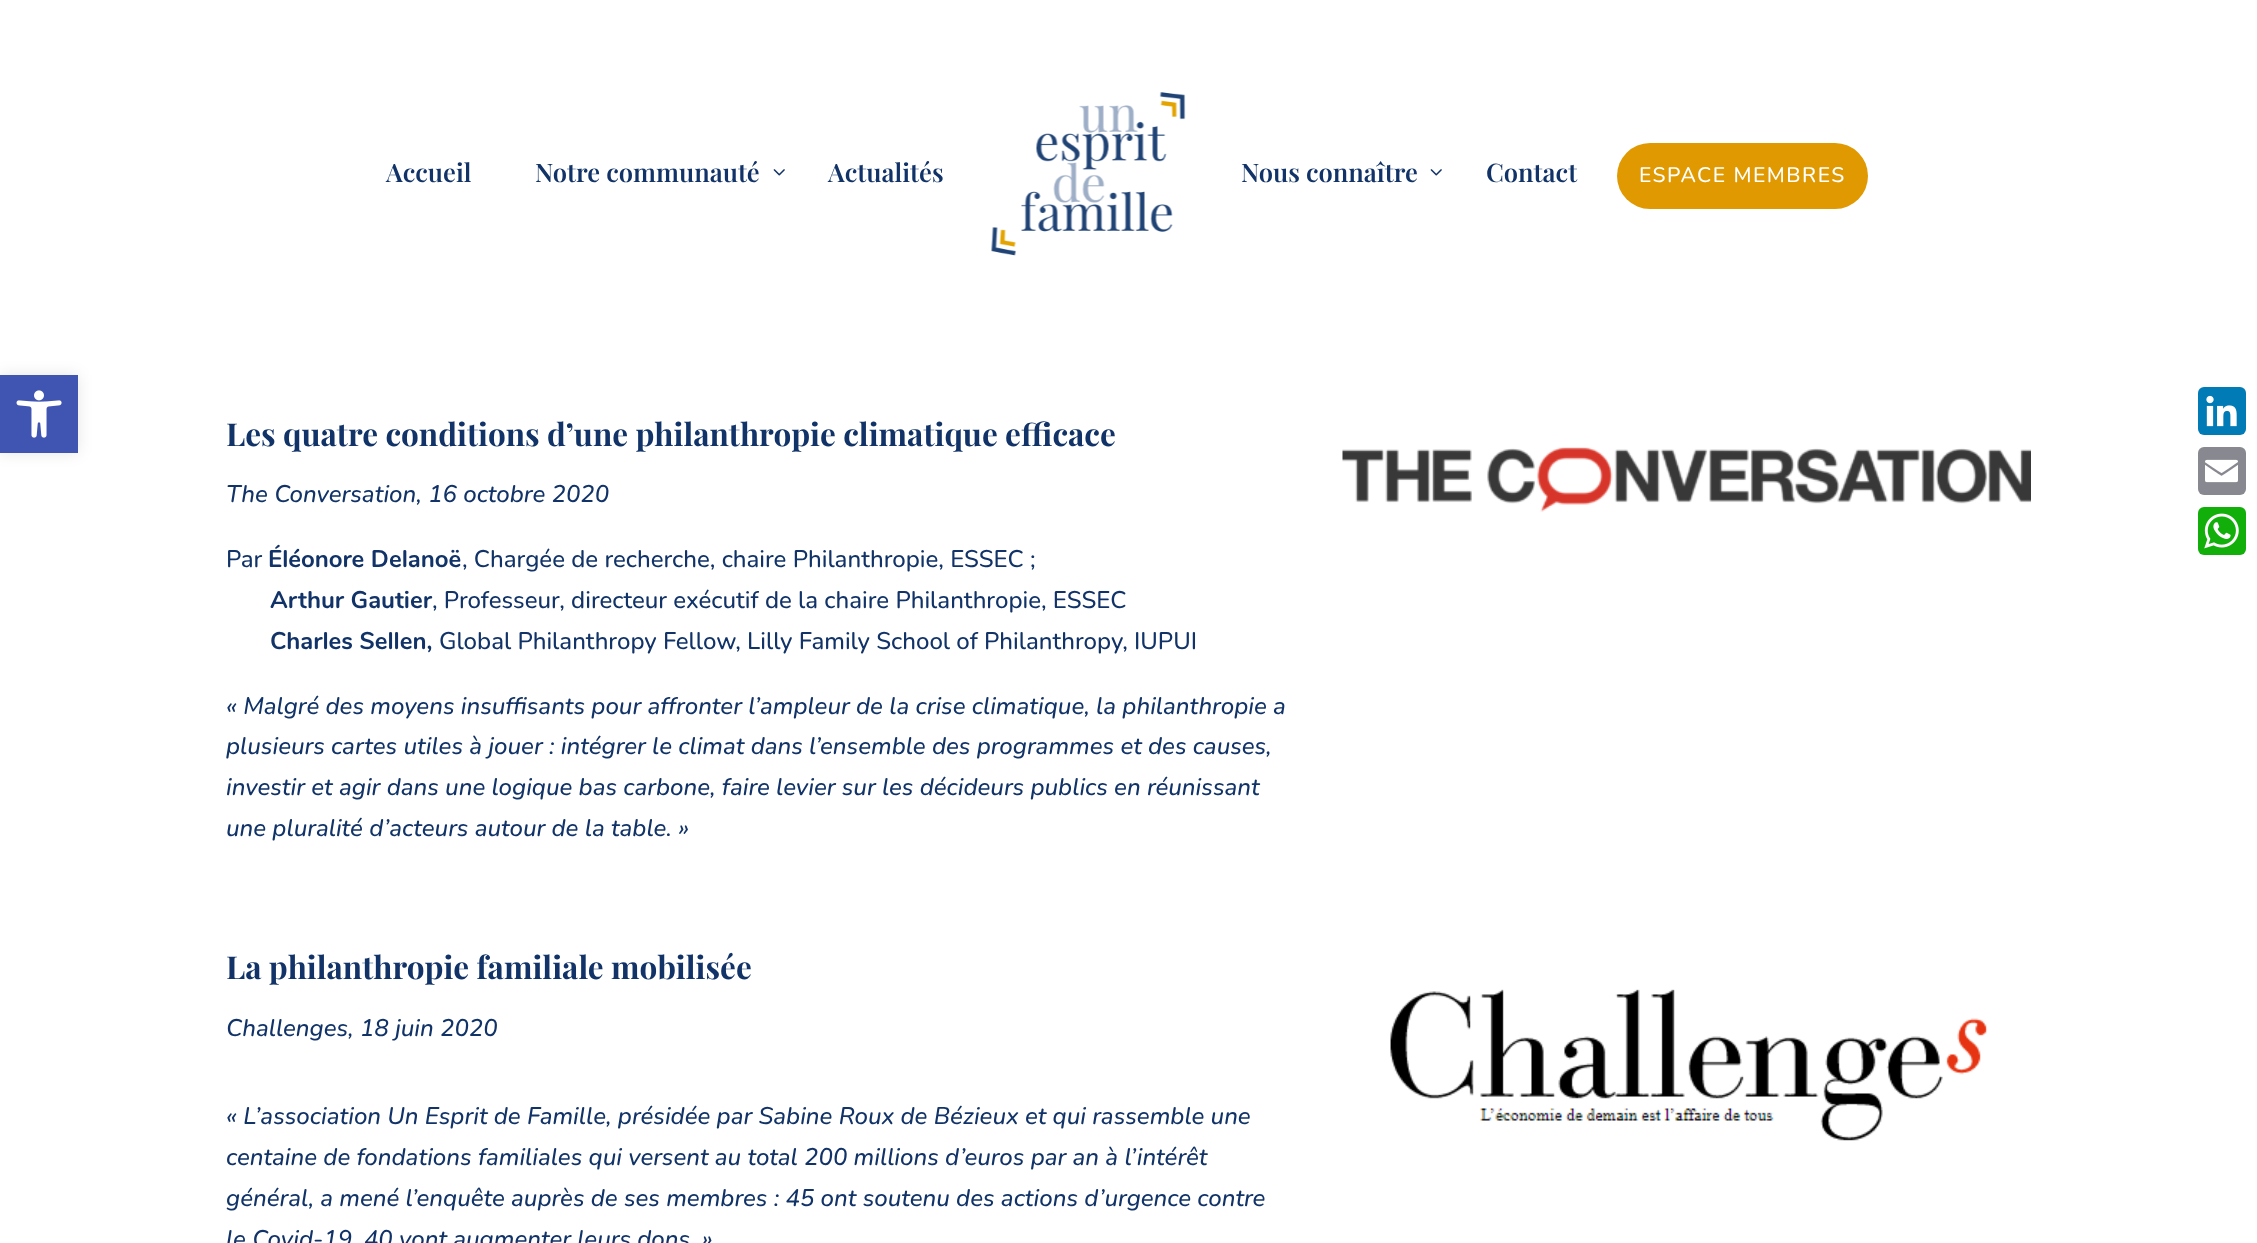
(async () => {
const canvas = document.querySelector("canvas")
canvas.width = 2257
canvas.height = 1243
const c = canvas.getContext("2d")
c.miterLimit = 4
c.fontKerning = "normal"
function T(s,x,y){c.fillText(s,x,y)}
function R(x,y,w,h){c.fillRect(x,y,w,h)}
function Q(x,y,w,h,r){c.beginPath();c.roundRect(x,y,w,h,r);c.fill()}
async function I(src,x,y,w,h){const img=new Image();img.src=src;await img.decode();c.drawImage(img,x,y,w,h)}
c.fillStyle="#fff"
R(0,0,2257,1243)
c.fillStyle="#0000001a"
c.filter="blur(7.5px)"
c.beginPath()
c.rect(0,375,78,78)
c.fill()
c.filter="none"
c.fillStyle="#4054b2"
R(0,375,78,78)
await I("1.png",16,390,46,48)
c.font="600 25.5px Playfair Display"
c.fillStyle="#113368"
T("Accueil",386,182)
T("Notre communauté",535,182)
await I("2.png",773,169,12,7)
T("Actualités",828,182)
await I("3.png",991,92,195,164)
T("Nous connaître",1241,182)
await I("2.png",1430,169,12,7)
T("Contact",1486,182)
c.fillStyle="#e09900"
Q(1617,143,251,66,33)
c.letterSpacing="1.5px"
c.font="200 21px Nunito"
c.fillStyle="#fff"
T("ESPACE MEMBRES",1639,182)
c.letterSpacing="0px"
c.font="bold 31.5px Playfair Display"
c.fillStyle="#113368"
T("Les quatre conditions d’une philanthropie climatique efficace",226,446)
c.font="italic 200 24px Nunito"
T("The Conversation, 16 octobre 2020",226,502)
c.font="200 24px Nunito"
T("Par",226,567)
c.font="bold 24px Nunito"
T("Éléonore Delanoë",268,567)
c.font="200 24px Nunito"
T(", Chargée de recherche, chaire Philanthropie, ESSEC ;",462,567)
c.font="bold 24px Nunito"
T("Arthur Gautier",270,608)
c.font="200 24px Nunito"
T(", Professeur, directeur exécutif de la chaire Philanthropie, ESSEC",432,608)
c.font="bold 24px Nunito"
T("Charles Sellen,",270,649)
c.font="200 24px Nunito"
T("Global Philanthropy Fellow, Lilly Family School of Philanthropy, IUPUI",439,649)
c.font="italic 200 24px Nunito"
T("« Malgré des moyens insuffisants pour affronter l’ampleur de la crise climatique, la philanthropie a",226,714)
T("plusieurs cartes utiles à jouer : intégrer le climat dans l’ensemble des programmes et des causes,",226,754)
T("investir et agir dans une logique bas carbone, faire levier sur les décideurs publics en réunissant",226,795)
T("une pluralité d’acteurs autour de la table. »",226,836)
await I("4.png",1342,447,689,65)
c.font="bold 31.5px Playfair Display"
T("La philanthropie familiale mobilisée",226,979)
c.font="italic 200 24px Nunito"
T("Challenges, 18 juin 2020",226,1036)
T("« L’association Un Esprit de Famille, présidée par Sabine Roux de Bézieux et qui rassemble une",226,1124)
T("centaine de fondations familiales qui versent au total 200 millions d’euros par an à l’intérêt",226,1165)
T("général, a mené l’enquête auprès de ses membres : 45 ont soutenu des actions d’urgence contre",226,1206)
T("le Covid-19, 40 vont augmenter leurs dons. »",226,1247)
await I("5.png",1390,989,598,152)
c.fillStyle="#007bb5"
Q(2198,387,48,48,6)
await I("6.png",2206,395,31,32)
c.fillStyle="#888990"
Q(2198,447,48,48,6)
await I("7.png",2205,459,33,24)
c.fillStyle="#12af0a"
Q(2198,507,48,48,6)
await I("8.png",2204,513,35,36)
})()
